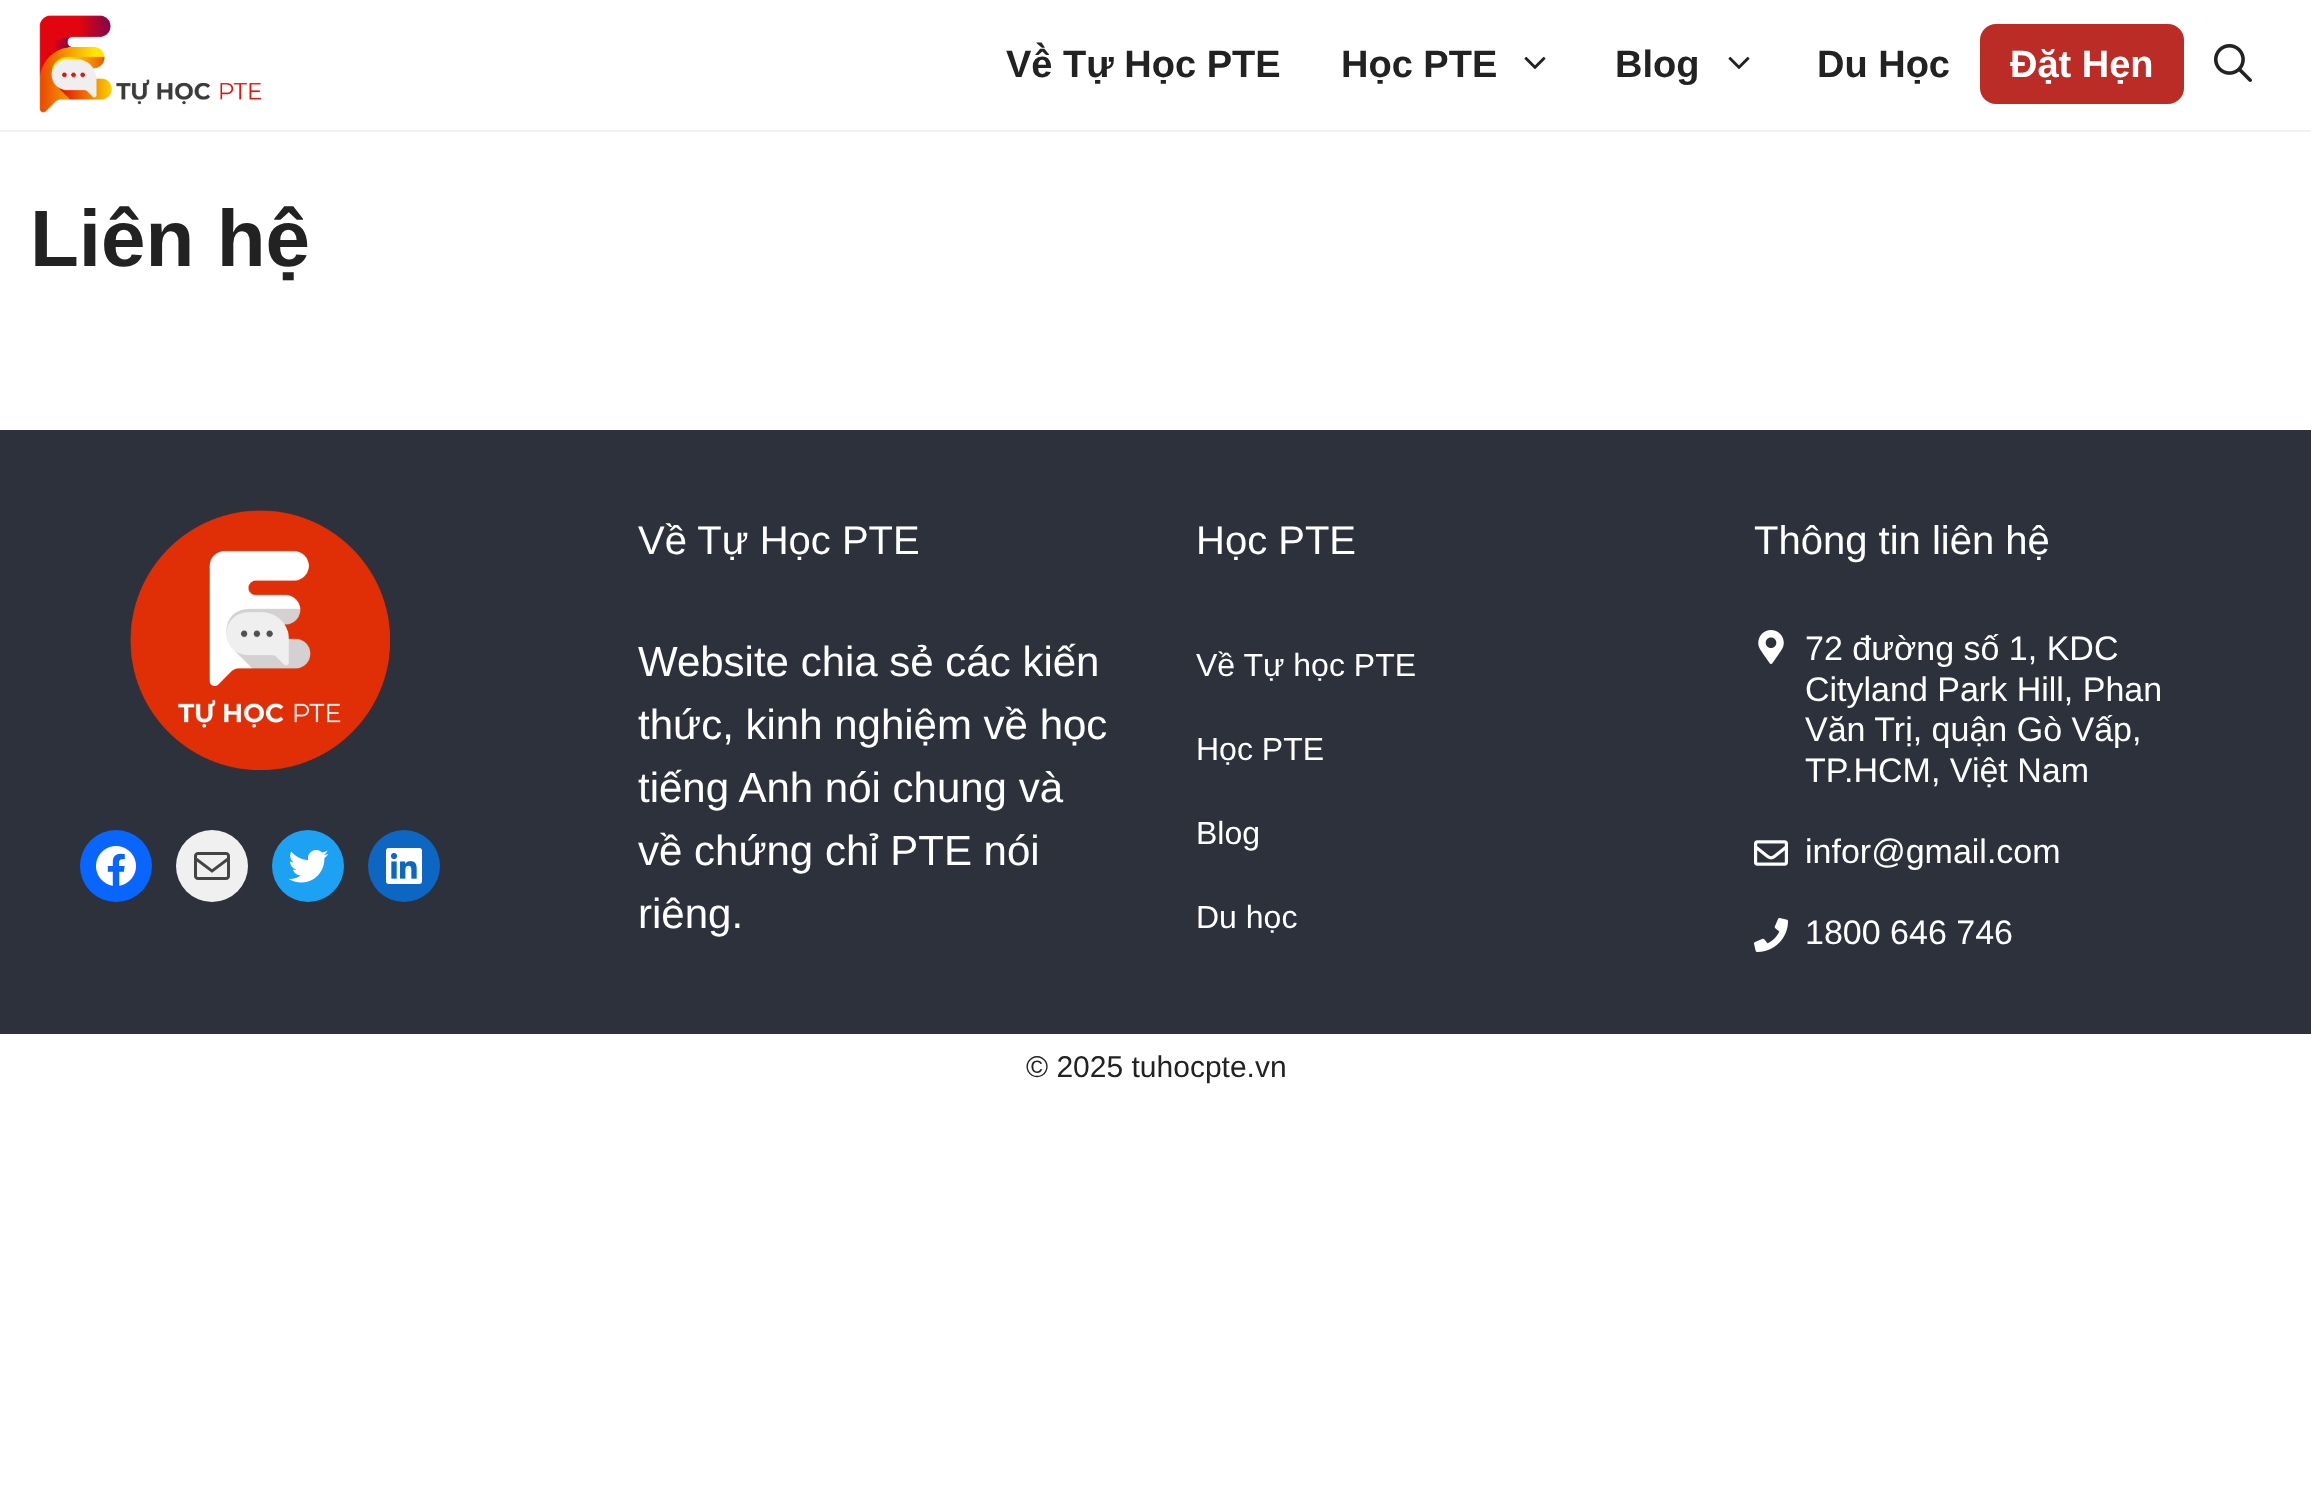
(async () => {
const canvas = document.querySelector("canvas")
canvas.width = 2311
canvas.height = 1509
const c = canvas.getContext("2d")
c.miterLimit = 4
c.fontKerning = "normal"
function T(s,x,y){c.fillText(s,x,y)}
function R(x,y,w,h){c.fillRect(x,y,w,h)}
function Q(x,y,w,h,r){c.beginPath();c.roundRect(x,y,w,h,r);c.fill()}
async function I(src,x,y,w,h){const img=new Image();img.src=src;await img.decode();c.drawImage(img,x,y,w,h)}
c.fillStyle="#fff"
R(0,0,2311,1509)
c.strokeStyle="#f2f2f2"
c.lineWidth=2
c.strokeRect(-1,-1,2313,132)
await I("1.png",39,15,222,98)
c.font="bold 38px Liberation Sans"
c.fillStyle="#222"
T("Về Tự Học PTE",1006,77)
T("Học PTE",1341,77)
await I("2.png",1524,56,22,13)
T("Blog",1615,77)
await I("2.png",1728,56,22,13)
T("Du Học",1817,77)
c.fillStyle="#bb2c26"
Q(1980,24,204,80,16)
c.fillStyle="#fff"
T("Đặt Hẹn",2010,77)
await I("3.png",2214,44,38,38)
c.font="bold 80px Liberation Sans"
c.fillStyle="#222"
T("Liên hệ",30,266)
c.fillStyle="#2d313c"
R(0,430,2311,604)
await I("4.png",130,510,260,260)
c.fillStyle="#0866ff"
c.beginPath()
c.arc(116,866,36,0,7)
c.fill()
await I("5.png",96,846,40,40)
c.fillStyle="#f0f0f0"
c.beginPath()
c.arc(212,866,36,0,7)
c.fill()
await I("6.png",194,852,36,28)
c.fillStyle="#1da1f2"
c.beginPath()
c.arc(308,866,36,0,7)
c.fill()
await I("7.png",288,850,41,33)
c.fillStyle="#0d66c2"
c.beginPath()
c.arc(404,866,36,0,7)
c.fill()
await I("8.png",386,848,36,36)
c.font="40px Liberation Sans"
c.fillStyle="#fff"
T("Về Tự Học PTE",638,554)
c.font="42px Liberation Sans"
T("Website chia sẻ các kiến",638,676)
T("thức, kinh nghiệm về học",638,739)
T("tiếng Anh nói chung và",638,802)
T("về chứng chỉ PTE nói",638,865)
T("riêng.",638,928)
c.font="40px Liberation Sans"
T("Học PTE",1196,554)
c.font="32px Liberation Sans"
T("Về Tự học PTE",1196,676)
T("Học PTE",1196,760)
T("Blog",1196,844)
T("Du học",1196,928)
c.font="40px Liberation Sans"
T("Thông tin liên hệ",1754,554)
await I("9.png",1758,630,26,34)
c.font="34px Liberation Sans"
T("72 đường số 1, KDC",1805,660)
T("Cityland Park Hill, Phan",1805,701)
T("Văn Trị, quận Gò Vấp,",1805,741)
T("TP.HCM, Việt Nam",1805,782)
await I("10.png",1754,840,34,26)
T("infor@gmail.com",1805,863)
await I("11.png",1754,918,34,34)
T("1800 646 746",1805,944)
c.font="30px Liberation Sans"
c.fillStyle="#222"
T("© 2025 tuhocpte.vn",1026,1077)
})()
